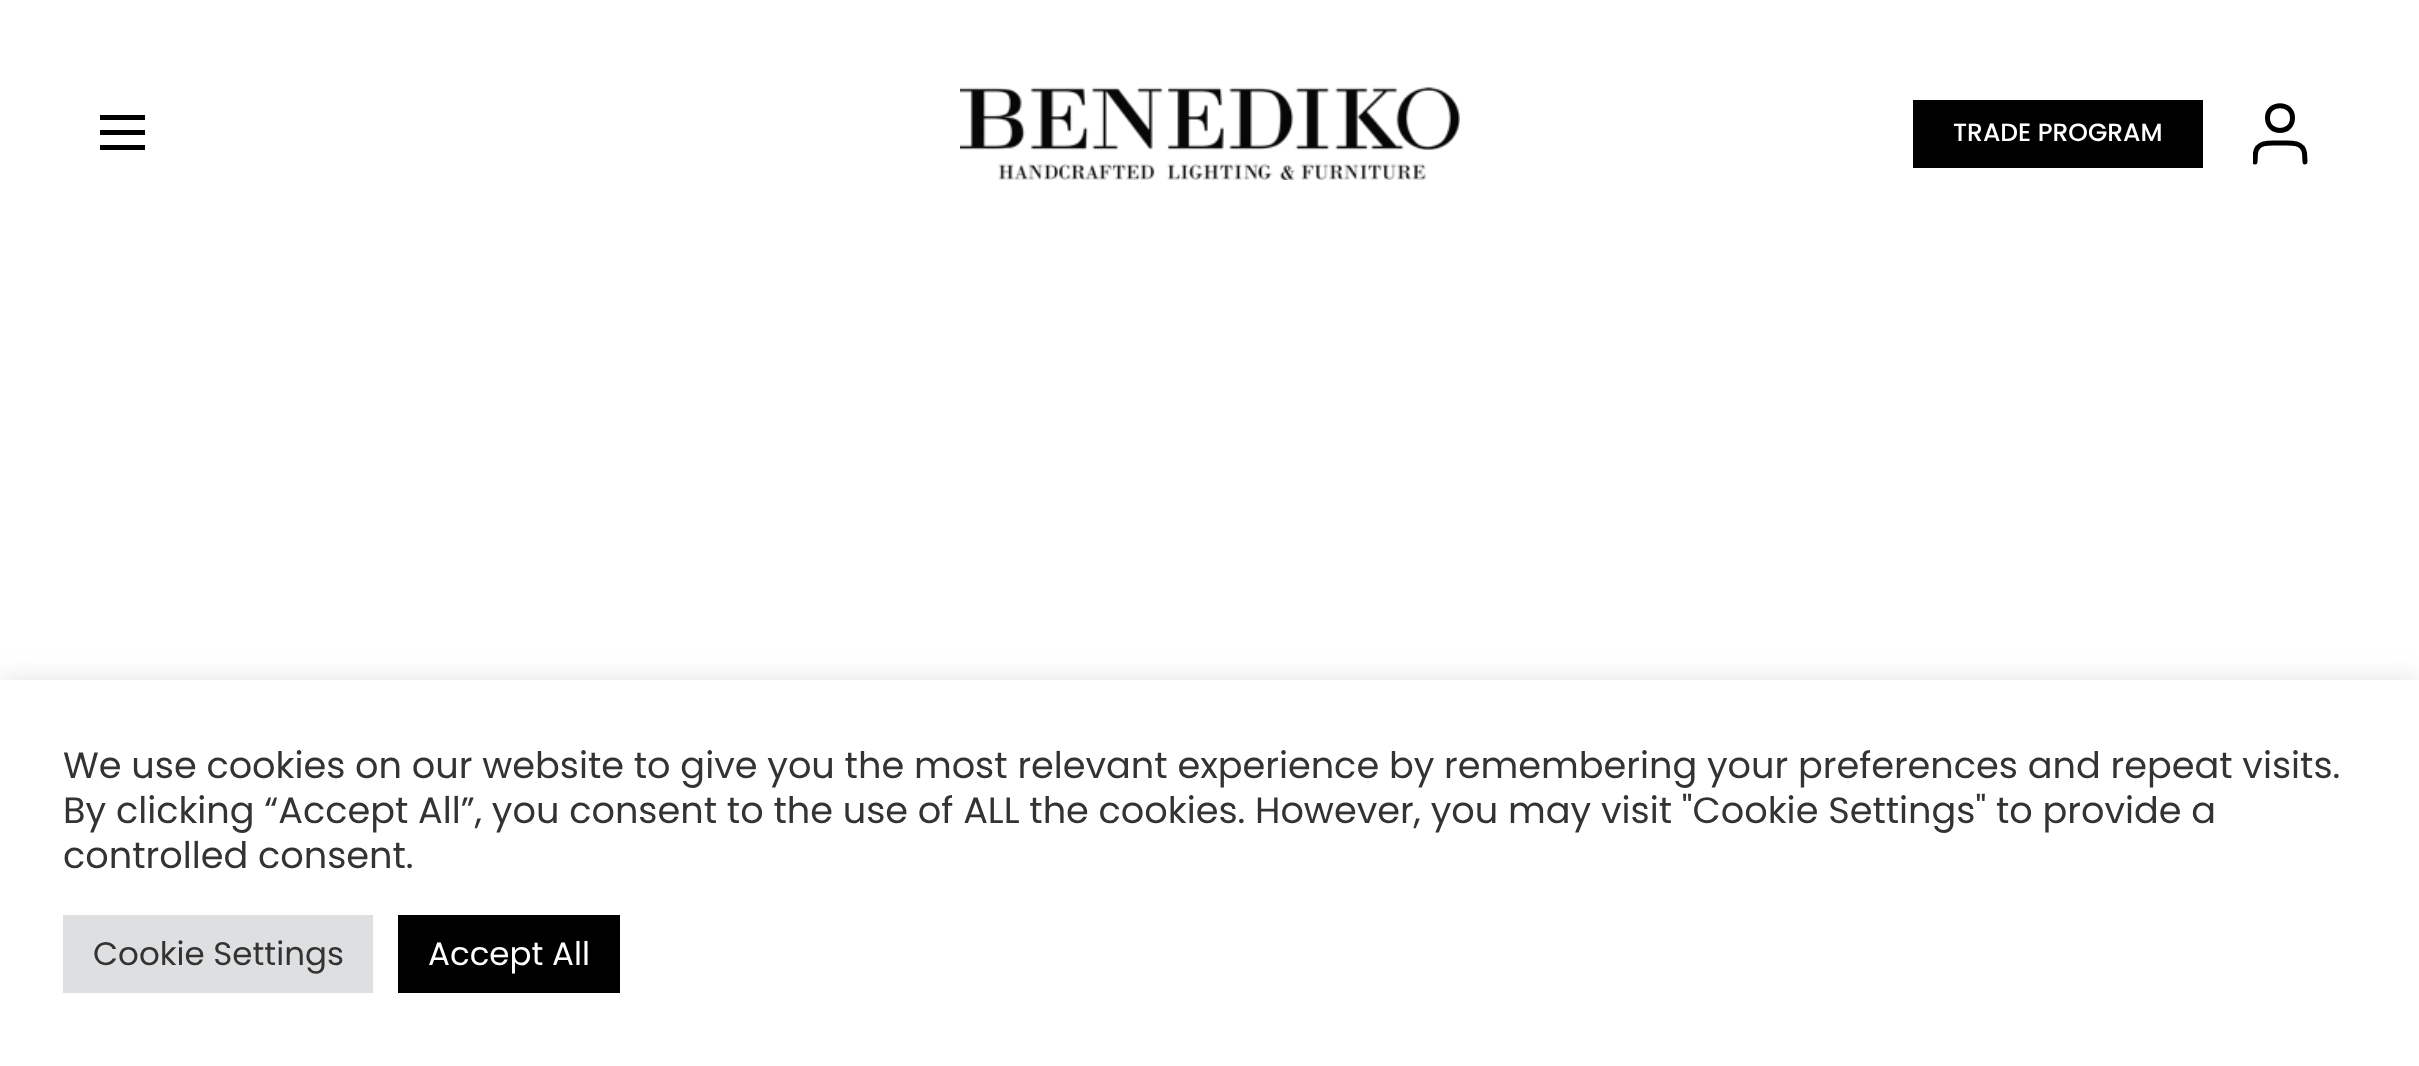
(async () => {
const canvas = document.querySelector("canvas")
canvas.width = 2419
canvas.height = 1066
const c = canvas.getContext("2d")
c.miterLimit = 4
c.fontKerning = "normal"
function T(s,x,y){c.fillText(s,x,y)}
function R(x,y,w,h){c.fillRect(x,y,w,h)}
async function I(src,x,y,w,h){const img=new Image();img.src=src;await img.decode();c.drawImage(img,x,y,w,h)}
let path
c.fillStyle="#fff"
R(0,0,2419,1066)
c.fillStyle="#000"
R(100,130,45,5)
R(100,115,45,5)
R(100,145,45,5)
await I("1.png",960,87,500,93)
R(1913,100,290,68)
c.font="500 25px Poppins"
c.fillStyle="#fff"
T("TRADE PROGRAM",1953,141)
c.save()
c.beginPath()
c.rect(2253,103,55,62)
c.clip()
path = new Path2D("M2305 162l-.5-9c-2-12-15.5-10-24.5-10c-9 0-22.5-2-24.5 10l-.5 9")
c.strokeStyle="#000"
c.lineWidth=5
c.lineCap="round"
c.lineJoin="round"
c.stroke(path)
c.restore()
path = new Path2D("M2292.5 118c0 16.5-25 16.5-25 0c0-16.5 25-16.5 25 0z")
c.strokeStyle="#000"
c.lineWidth=5
c.lineCap="round"
c.lineJoin="round"
c.stroke(path)
c.fillStyle="#acabab4d"
c.filter="blur(12.5px)"
c.beginPath()
c.rect(0,678,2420,387)
c.fill()
c.filter="none"
c.fillStyle="#fff"
R(0,680,2419,386)
c.font="36.67px Poppins"
c.fillStyle="#333"
T("We use cookies on our website to give you the most relevant experience by remembering your preferences and repeat visits.",63,778)
T("By clicking “Accept All”, you consent to the use of ALL the cookies. However, you may visit \"Cookie Settings\" to provide a",63,823)
T("controlled consent.",63,868)
c.fillStyle="#dedfe0"
R(63,915,310,78)
c.font="32.5px Poppins"
c.fillStyle="#333"
T("Cookie Settings",93,965)
c.fillStyle="#000"
R(398,915,222,78)
c.fillStyle="#fff"
T("Accept All",428,965)
})()
